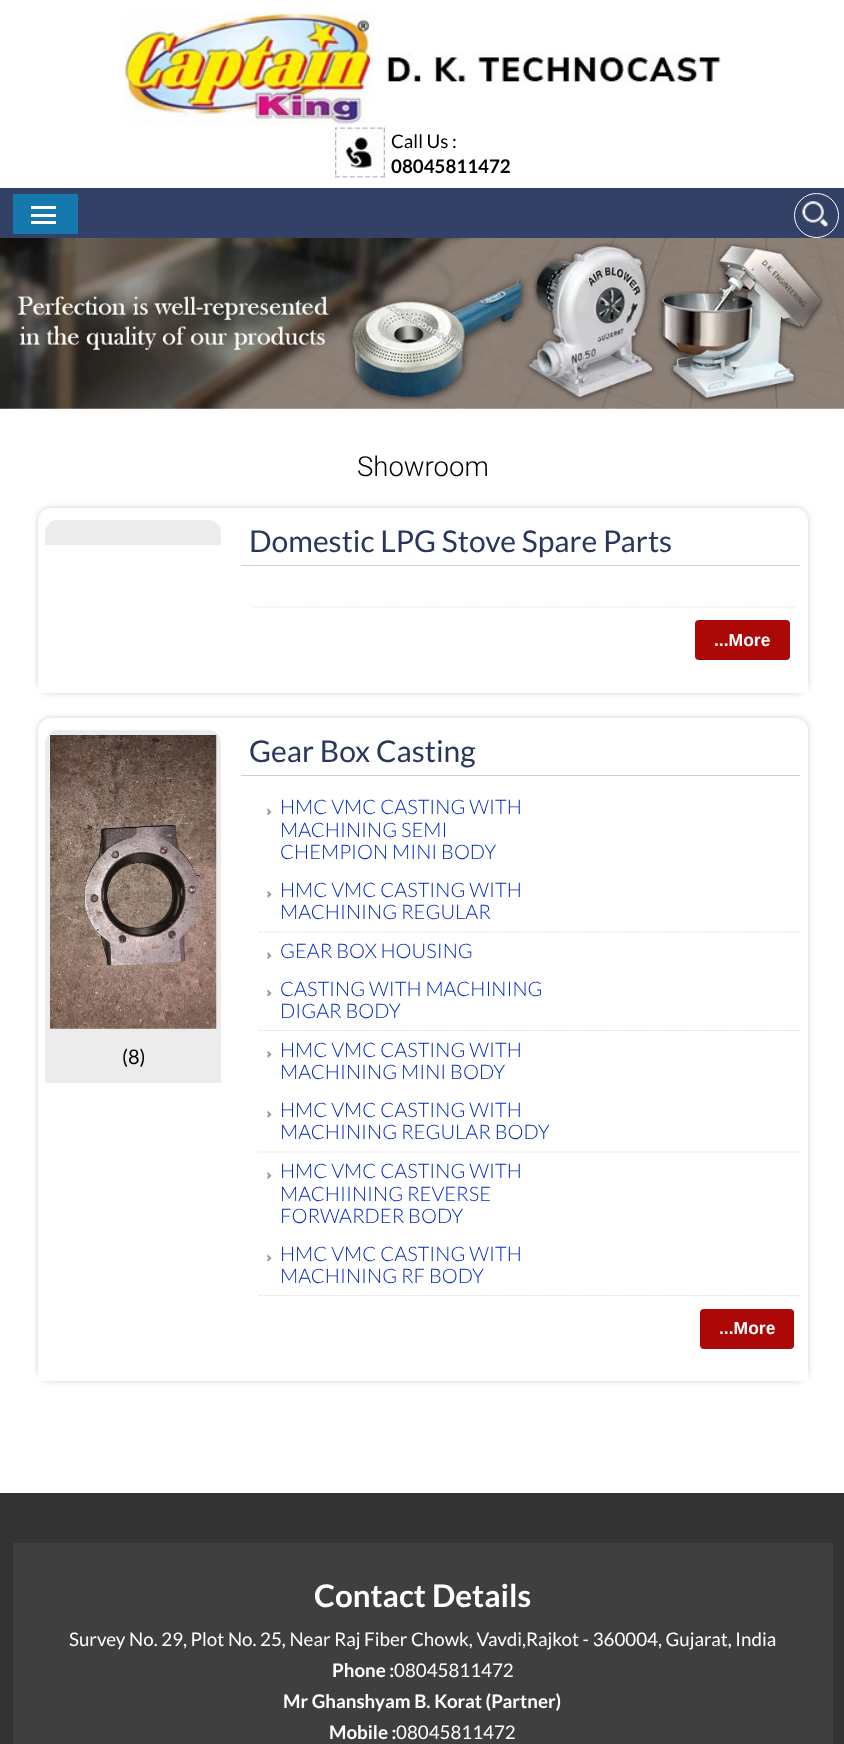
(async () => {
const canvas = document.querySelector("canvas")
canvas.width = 844
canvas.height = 1744
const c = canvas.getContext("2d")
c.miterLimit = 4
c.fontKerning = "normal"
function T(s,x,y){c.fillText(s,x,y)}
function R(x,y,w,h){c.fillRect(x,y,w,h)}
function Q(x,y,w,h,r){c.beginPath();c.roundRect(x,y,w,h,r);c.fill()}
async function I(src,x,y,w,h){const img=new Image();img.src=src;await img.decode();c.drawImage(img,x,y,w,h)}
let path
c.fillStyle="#fff"
R(0,0,844,1744)
await I("1.png",124,12,598,112)
await I("2.png",335,127,50,51)
c.font="18.75px Lato"
c.fillStyle="#000"
T("Call Us :",391,148)
c.font="bold 18.75px Lato"
T("08045811472",391,173)
c.fillStyle="#334166"
R(0,188,844,50)
c.fillStyle="#1579ad"
R(13,194,65,40)
c.fillStyle="#fff"
R(31,206,25,3)
R(31,214,25,3)
R(31,221,25,3)
await I("3.png",802,201,26,26)
c.beginPath()
c.arc(816.5,215.5,22,0,7)
c.strokeStyle="#fff"
c.stroke()
await I("4.png",0,238,844,171)
c.font="300 27.5px Roboto"
c.fillStyle="#000"
T("Showroom",357,476)
c.fillStyle="#3232323b"
c.filter="blur(3px)"
c.beginPath()
c.roundRect(38,508,770,185,13)
c.fill()
c.filter="none"
c.fillStyle="#fff"
c.beginPath()
c.roundRect(38,508,770,185,[13,13,0,0])
c.fill()
c.fillStyle="#ececec"
c.beginPath()
c.roundRect(45,520,176,25,[12.5,12.5,0,0])
c.fill()
c.fillStyle="#cfcfcf"
R(241,565,559,1)
c.font="30px Lato"
c.fillStyle="#29375c"
T("Domestic LPG Stove Spare Parts",249,552)
path = new Path2D("M254 607h542")
c.strokeStyle="#dadada"
c.lineWidth=1.2
c.setLineDash([1.25,1.25])
c.stroke(path)
c.fillStyle="#ad0808"
Q(695,620,95,40,4)
c.font="bold 17.5px Liberation Sans"
c.fillStyle="#fff"
T("...More",714,646)
c.fillStyle="#3232323b"
c.filter="blur(3px)"
c.beginPath()
c.roundRect(38,718,770,663,13)
c.fill()
c.filter="none"
c.fillStyle="#fff"
c.beginPath()
c.roundRect(38,718,770,663,[13,13,0,0])
c.fill()
c.fillStyle="#cfcfcf"
R(241,775,559,1)
c.font="30px Lato"
c.fillStyle="#29375c"
T("Gear Box Casting",249,762)
c.fillStyle="#ececec"
c.beginPath()
c.roundRect(45,730,176,353,[13,13,0,0])
c.fill()
await I("5.png",50,735,167,294)
c.font="20px Lato"
c.fillStyle="#000"
T("(8)",122,1064)
path = new Path2D("M259 932h541")
c.stroke(path)
await I("6.png",267,807,5,8)
c.font="300 20px Lato"
c.fillStyle="#032cc0"
T("HMC VMC CASTING WITH",280,814)
T("MACHINING SEMI",280,837)
T("CHEMPION MINI BODY",280,859)
await I("7.png",267,890,5,8)
T("HMC VMC CASTING WITH",280,897)
T("MACHINING REGULAR",280,919)
path = new Path2D("M259 1030.5h541")
c.stroke(path)
await I("8.png",267,951,5,8)
T("GEAR BOX HOUSING",280,958)
await I("9.png",267,989,5,8)
T("CASTING WITH MACHINING",280,996)
T("DIGAR BODY",280,1018)
path = new Path2D("M259 1152h541")
c.stroke(path)
await I("7.png",267,1050,5,8)
T("HMC VMC CASTING WITH",280,1057)
T("MACHINING MINI BODY",280,1079)
await I("7.png",267,1110,5,8)
T("HMC VMC CASTING WITH",280,1117)
T("MACHINING REGULAR BODY",280,1139)
path = new Path2D("M259 1295.5h541")
c.stroke(path)
await I("10.png",267,1171,5,8)
T("HMC VMC CASTING WITH",280,1178)
T("MACHIINING REVERSE",280,1201)
T("FORWARDER BODY",280,1223)
await I("9.png",267,1254,5,8)
T("HMC VMC CASTING WITH",280,1261)
T("MACHINING RF BODY",280,1283)
c.fillStyle="#ad0808"
Q(700,1309,94,40,4)
c.font="bold 17.5px Liberation Sans"
c.fillStyle="#fff"
T("...More",719,1334)
c.fillStyle="#333"
R(0,1493,844,251)
c.fillStyle="#3f3f3f"
R(13,1543,820,201)
c.font="bold 31.25px Lato"
c.fillStyle="#fff"
T("Contact Details",314,1607)
c.font="18.75px Lato"
T("Survey No. 29, Plot No. 25, Near Raj Fiber Chowk, Vavdi,Rajkot - 360004, Gujarat, India",69,1646)
c.font="bold 18.75px Lato"
T("Phone :",332,1677)
c.font="18.75px Lato"
T("08045811472",394,1677)
c.font="bold 18.75px Lato"
T("Mr Ghanshyam B. Korat (Partner)",283,1708)
T("Mobile :",329,1739)
c.font="18.75px Lato"
T("08045811472",396,1739)
})()
